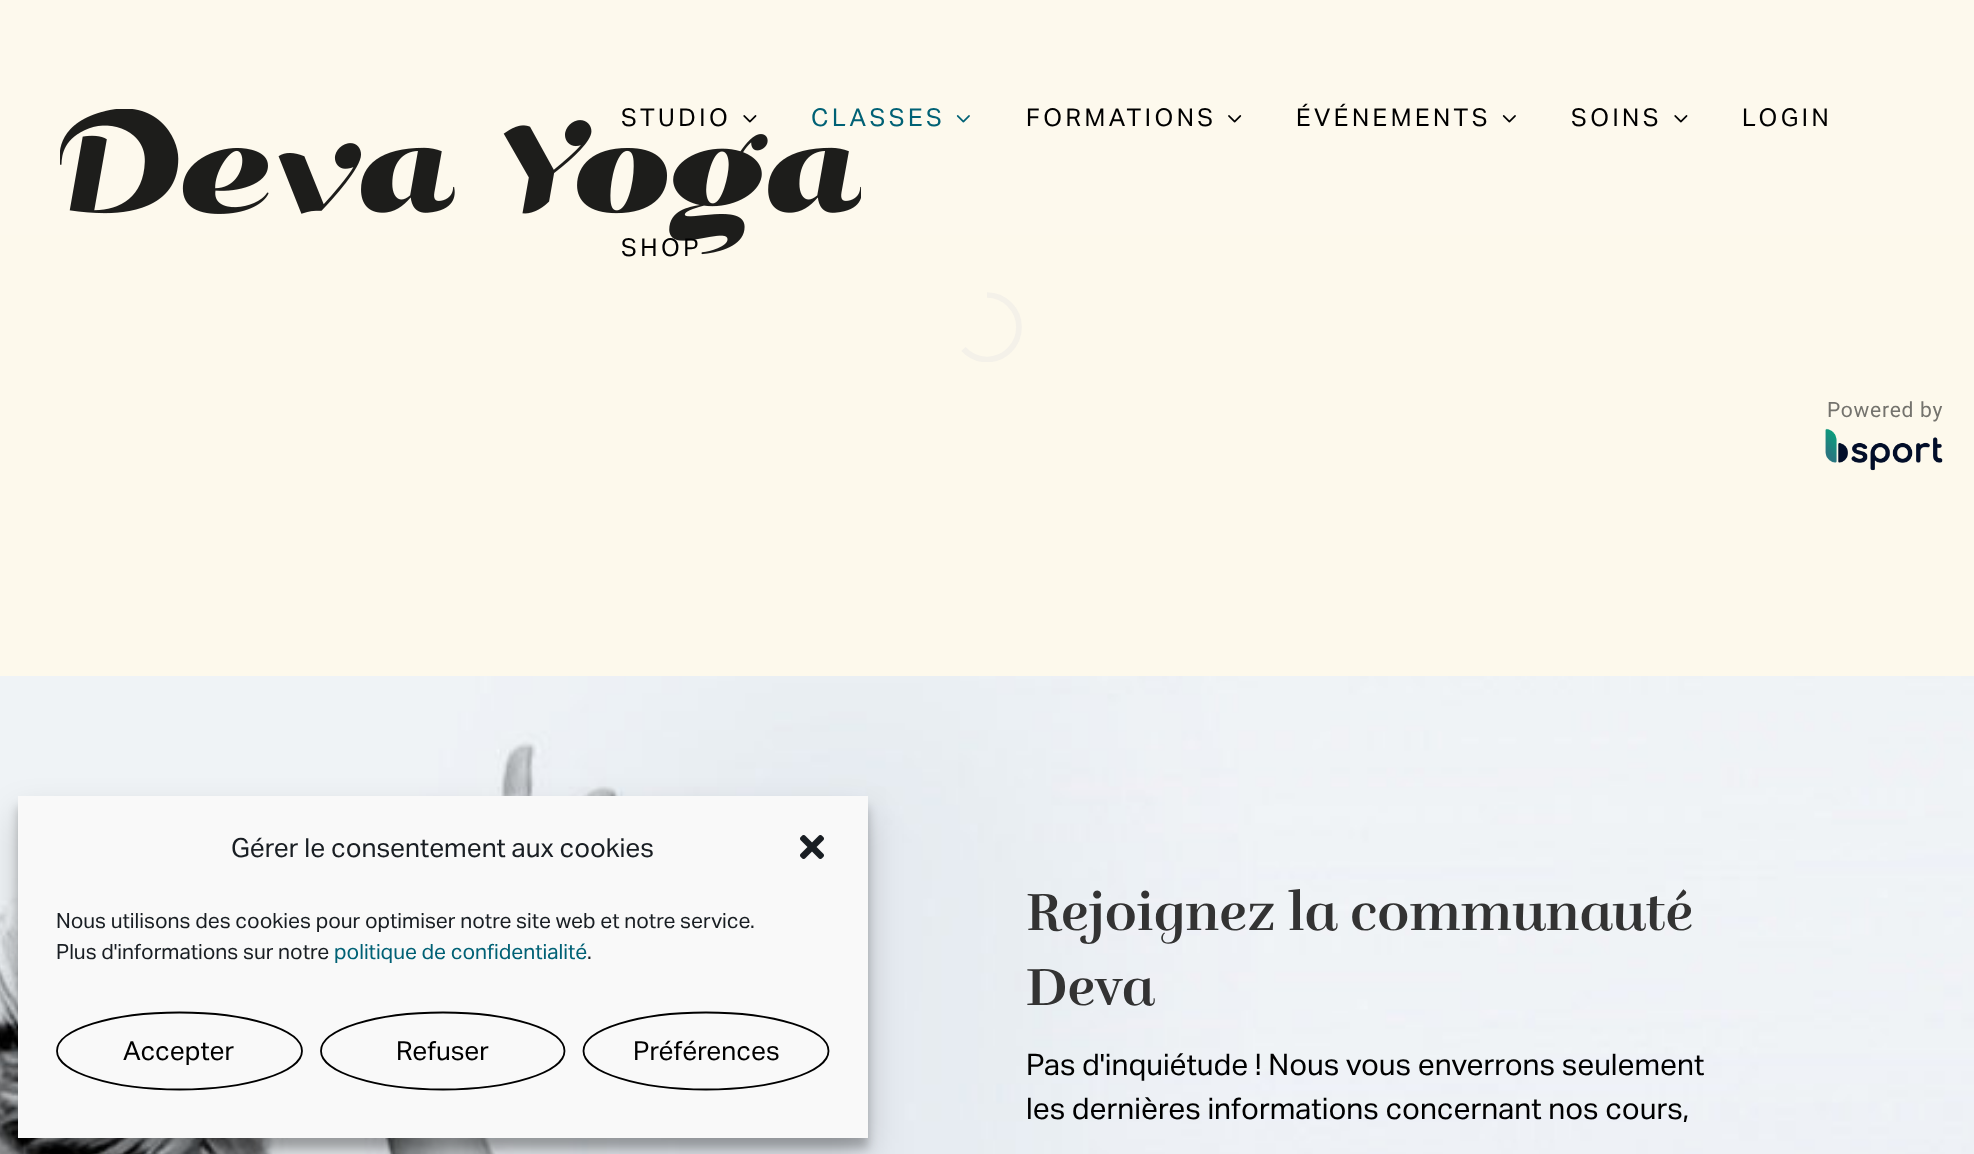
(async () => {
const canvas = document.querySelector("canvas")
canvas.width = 1974
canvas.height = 1154
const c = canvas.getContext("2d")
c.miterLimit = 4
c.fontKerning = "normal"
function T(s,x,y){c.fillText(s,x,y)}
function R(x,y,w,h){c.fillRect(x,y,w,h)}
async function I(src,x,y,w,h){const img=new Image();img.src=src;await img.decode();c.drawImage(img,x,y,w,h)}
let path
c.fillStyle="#fff"
R(0,0,1974,1154)
await I("8.png",0,676,1974,478)
c.fillStyle="#0000003b"
c.filter="blur(5px)"
c.beginPath()
c.rect(18,807,850,341)
c.fill()
c.filter="none"
c.fillStyle="#00000030"
c.filter="blur(17.5px)"
c.beginPath()
c.rect(18,814,850,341)
c.fill()
c.filter="none"
c.filter="blur(17.5px)"
c.beginPath()
c.roundRect(35,1040,98,98,49)
c.fill()
c.filter="none"
c.fillStyle="#f9f9f9"
R(18,796,850,342)
c.font="26.25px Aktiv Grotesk"
c.fillStyle="#191e23"
T("Gérer le consentement aux cookies",231,857)
await I("1.png",800,835,24,24)
c.font="21px Aktiv Grotesk"
T("Nous utilisons des cookies pour optimiser notre site web et notre service.",56,928)
T("Plus d'informations sur notre",56,959)
c.fillStyle="#006175"
T("politique de confidentialité",334,959)
c.fillStyle="#191e23"
T(".",587,959)
path = new Path2D("M179.5 1012.5c67.5 0 122.5 17 122.5 38.5c0 21-55 38.5-122.5 38.5c-68 0-122.5-17.5-122.5-38.5c0-21.5 54.5-38.5 122.5-38.5z")
c.strokeStyle="#000"
c.lineWidth=1.8
c.stroke(path)
c.font="26.25px Aktiv Grotesk"
c.fillStyle="#000"
T("Accepter",123,1060)
path = new Path2D("M443 1012.5c67 0 121.5 17 121.5 38.5c0 21-54.5 38.5-121.5 38.5c-67.5 0-122-17.5-122-38.5c0-21.5 54.5-38.5 122-38.5z")
c.stroke(path)
T("Refuser",396,1060)
path = new Path2D("M706 1012.5c68 0 122.5 17 122.5 38.5c0 21-54.5 38.5-122.5 38.5c-67.5 0-122.5-17.5-122.5-38.5c0-21.5 55-38.5 122.5-38.5z")
c.stroke(path)
T("Préférences",633,1060)
c.fillStyle="#fdf9ed"
R(0,0,1974,235)
c.fillStyle="#fdf9ec"
R(0,235,1974,441)
await I("2.png",60,109,801,146)
c.letterSpacing="3.5px"
c.font="24.5px Aktiv Grotesk"
c.fillStyle="#000"
T("STUDIO",621,126)
await I("3.png",743,115,14,8)
c.fillStyle="#006175"
T("CLASSES",811,126)
await I("4.png",956,115,14,8)
c.fillStyle="#000"
T("FORMATIONS",1026,126)
await I("5.png",1228,115,14,8)
T("ÉVÉNEMENTS",1296,126)
await I("6.png",1502,115,14,8)
T("SOINS",1571,126)
await I("3.png",1674,115,14,8)
T("LOGIN",1742,126)
T("SHOP",621,256)
c.save()
c.beginPath()
c.rect(952,292,70,70)
c.clip()
path = new Path2D("M987 295c17.5 0 32 14.5 32 32c0 18-14.5 32.5-32 32.5c-9.5 0-17.5-4-23.5-10.5")
c.strokeStyle="#f4f1e9"
c.lineWidth=5.7
c.stroke(path)
c.restore()
c.letterSpacing="0.75px"
c.font="21px Roboto"
c.fillStyle="#74736d"
T("Powered by",1827,417)
await I("7.png",1825,428,118,43)
c.letterSpacing="0px"
c.font="bold 53.5px 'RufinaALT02'"
c.fillStyle="#333"
T("Rejoignez la communauté",1026,930)
T("Deva",1026,1005)
c.font="29.75px Aktiv Grotesk"
c.fillStyle="#000"
T("Pas d'inquiétude ! Nous vous enverrons seulement",1026,1075)
T("les dernières informations concernant nos cours,",1026,1119)
})()
